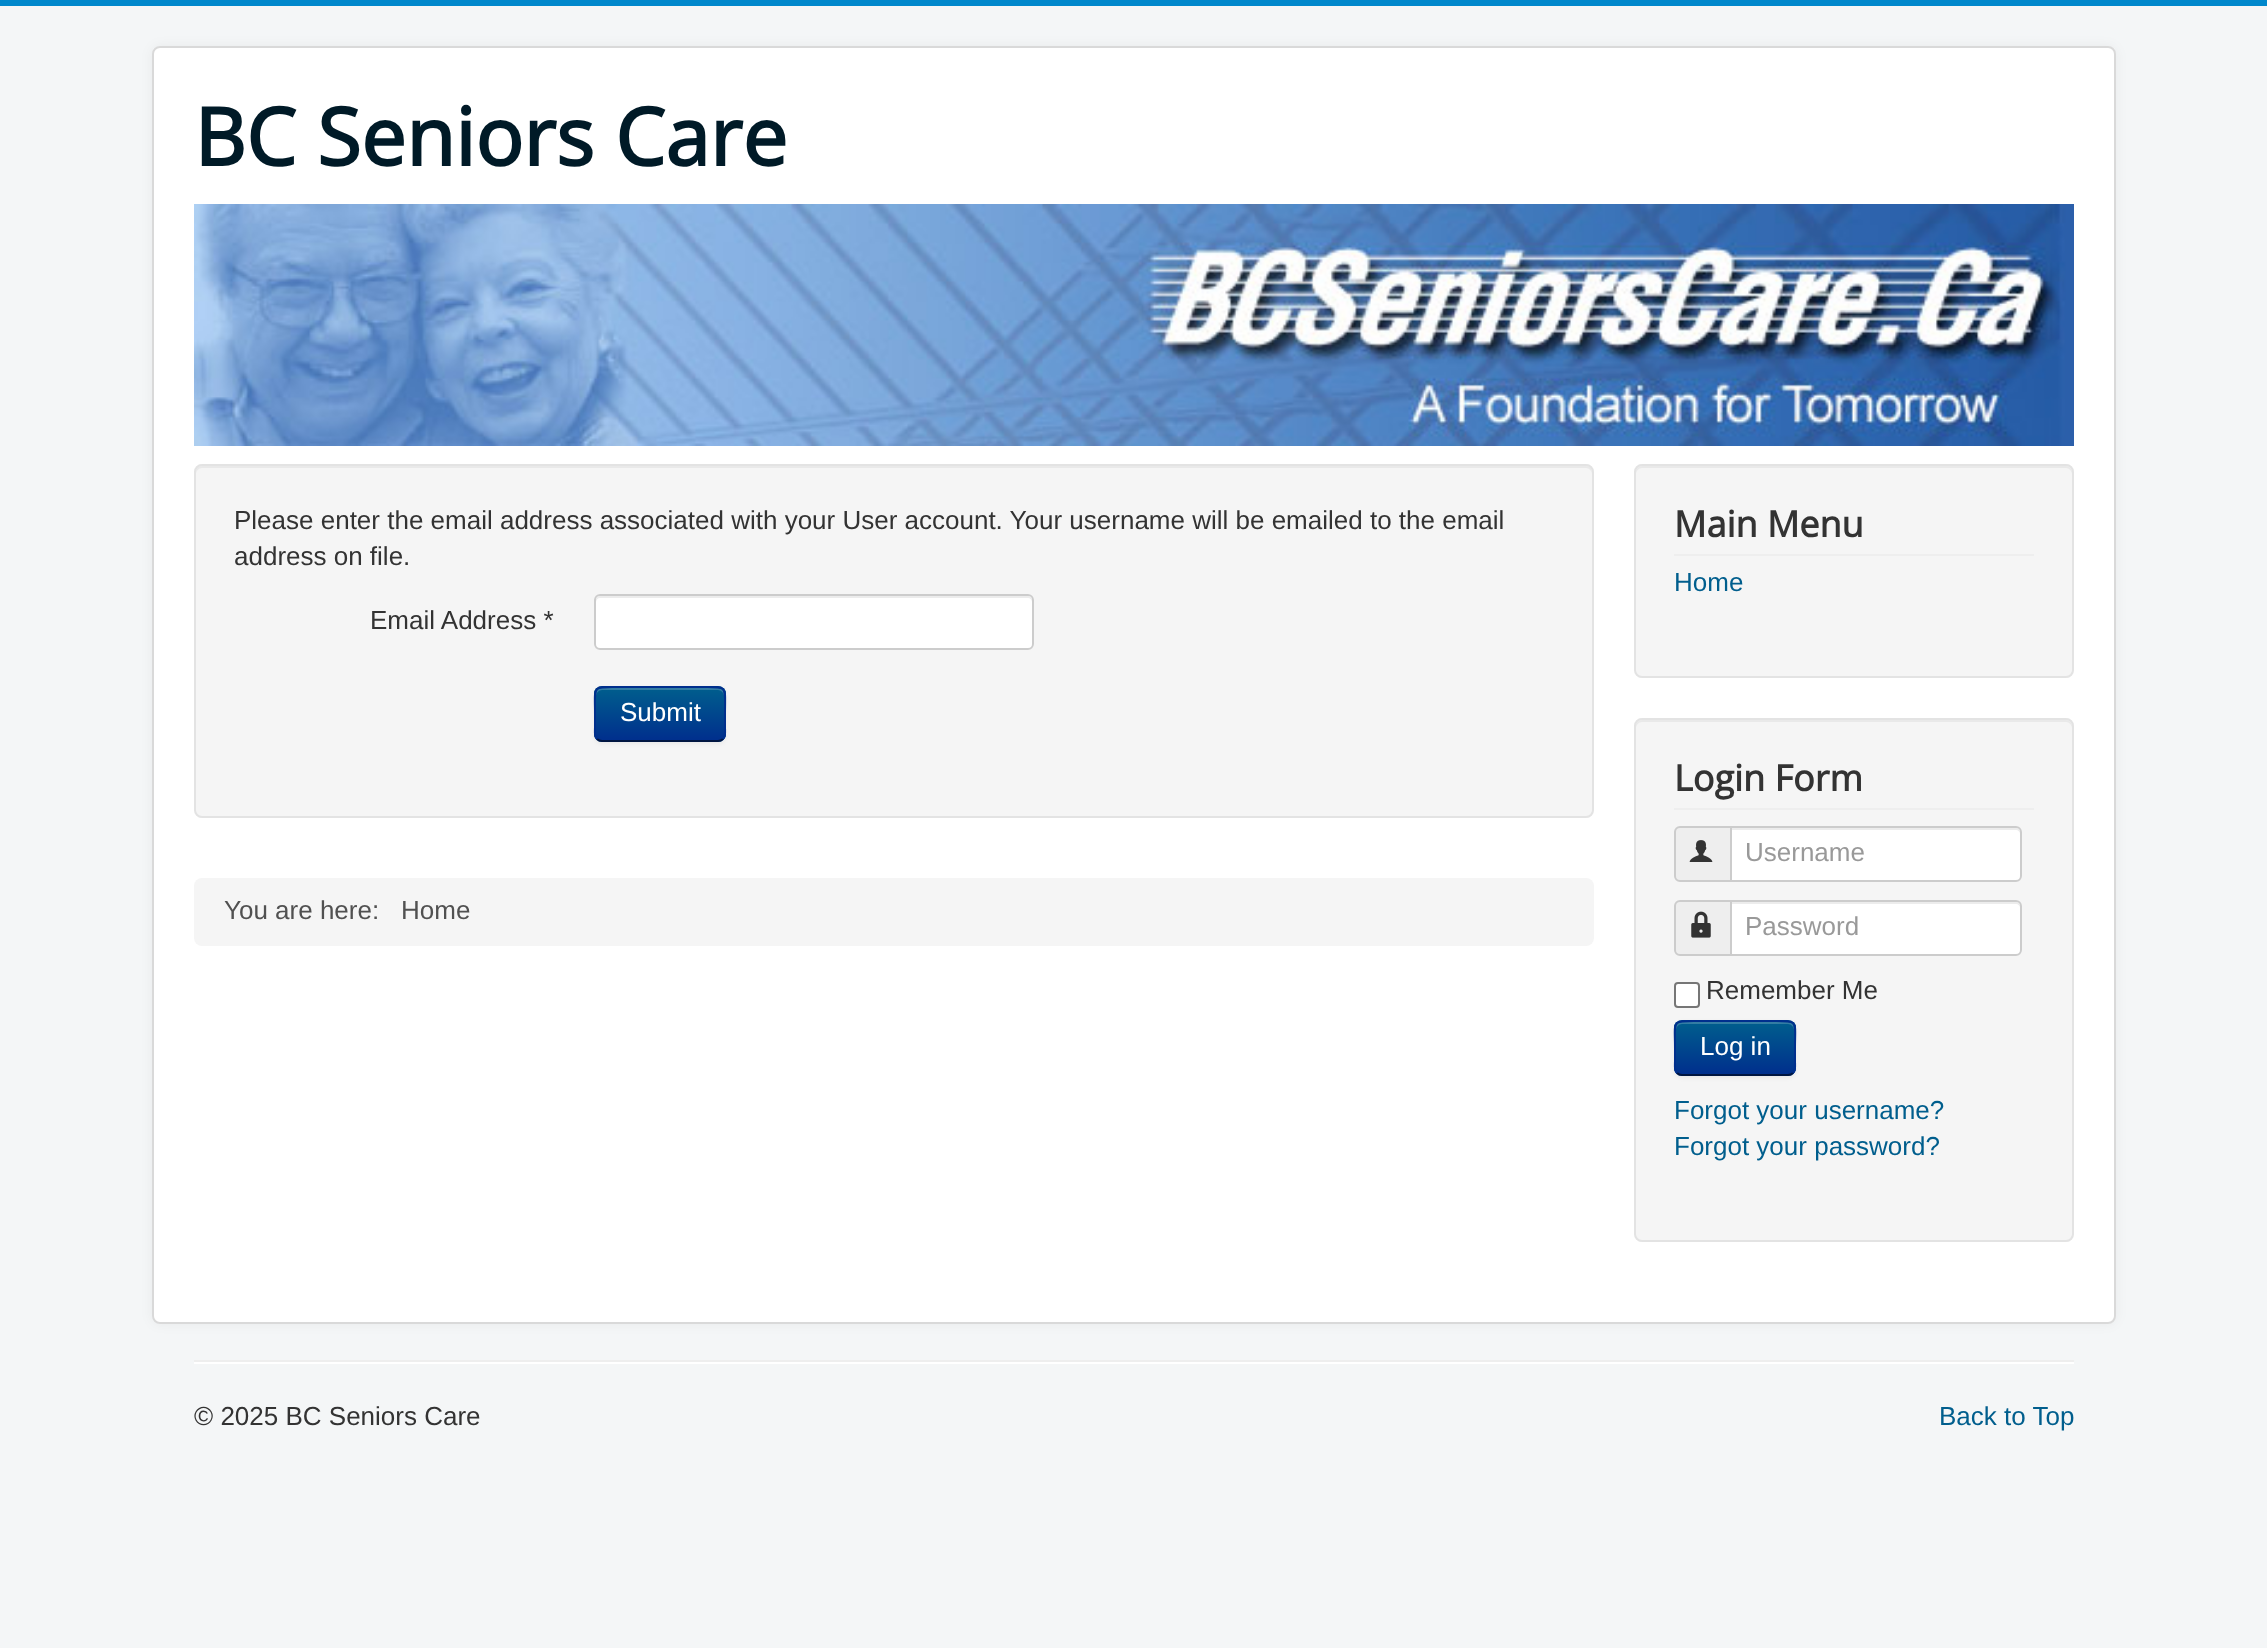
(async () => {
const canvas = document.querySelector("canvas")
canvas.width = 2267
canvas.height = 1648
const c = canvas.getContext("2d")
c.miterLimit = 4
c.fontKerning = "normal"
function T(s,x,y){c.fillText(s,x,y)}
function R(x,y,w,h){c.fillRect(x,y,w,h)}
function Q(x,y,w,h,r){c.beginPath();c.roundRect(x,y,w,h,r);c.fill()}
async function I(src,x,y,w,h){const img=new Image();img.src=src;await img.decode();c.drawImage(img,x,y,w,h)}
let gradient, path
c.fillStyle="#f4f6f7"
R(0,0,2267,1648)
c.fillStyle="#08c"
R(0,0,2267,6)
c.fillStyle="#0000000d"
c.filter="blur(6px)"
c.beginPath()
c.roundRect(152,46,1964,1278,8)
c.fill()
c.filter="none"
c.fillStyle="#fff"
Q(152,46,1964,1278,8)
c.beginPath()
c.roundRect(153,47,1962,1276,7)
c.strokeStyle="#00000026"
c.lineWidth=2
c.stroke()
c.font="bold 80px Open Sans"
c.fillStyle="#001a27"
T("BC Seniors Care",194,166)
await I("1.png",194,204,1880,242)
c.fillStyle="#f5f5f5"
Q(194,464,1400,354,8)
c.fillStyle="#e9e9e9"
path = new Path2D("M202 468h1384c3 0 6 3 6 6c0-4-1-8-6-8h-1384c-5 0-6 4-6 8c0-3 3-6 6-6z")
c.fill(path)
c.beginPath()
c.roundRect(195,465,1398,352,7)
c.strokeStyle="#e3e3e3"
c.stroke()
c.font="26px Liberation Sans"
c.fillStyle="#333"
T("Please enter the email address associated with your User account. Your username will be emailed to the email",234,529)
T("address on file.",234,565)
T("Email Address *",370,629)
c.fillStyle="#fff"
Q(594,594,440,56,6)
c.fillStyle="#ececec"
path = new Path2D("M600 598h428c2 0 4 2 4 4v-2c0-2-2-4-4-4h-428c-2 0-4 2-4 4v2c0-2 2-4 4-4z")
c.fill(path)
c.beginPath()
c.roundRect(595,595,438,54,5)
c.strokeStyle="#ccc"
c.stroke()
c.fillStyle="#0000000d"
c.filter="blur(2px)"
c.beginPath()
c.roundRect(594,688,132,56,8)
c.fill()
c.filter="none"
c.fillStyle="#004b8d"
Q(594,686,132,56,8)
c.save()
c.beginPath()
c.roundRect(594,686,132,56,8)
c.clip()
gradient = c.createLinearGradient(660,688,660,740)
gradient.addColorStop(0,"#005e8d")
gradient.addColorStop(1,"#002f8d")
c.fillStyle = gradient
R(594,688,132,52)
c.restore()
c.fillStyle="#ffffff33"
path = new Path2D("M602 690h116c3 0 6 3 6 6v-2c0-3-3-6-6-6h-116c-3 0-6 3-6 6v2c0-3 3-6 6-6z")
c.fill(path)
path = new Path2D("M723 739c-1.5 1.5-3 2-5 2h-116c-2 0-3.5-.5-5-2")
c.strokeStyle="#001641"
c.stroke(path)
path = new Path2D("M597 739c-3-3-2-8-2-11.5v-13.5c0-30-4-27 26.5-27h77c30.5 0 26.5-3 26.5 27v13.5c0 3.5 1 8.5-2 11.5")
c.strokeStyle="#002f8d"
c.stroke(path)
c.fillStyle="#fff"
T("Submit",620,721)
c.fillStyle="#f5f5f5"
Q(194,878,1400,68,8)
c.fillStyle="#515151"
T("You are here:",224,919)
T("Home",401,919)
c.fillStyle="#f5f5f5"
Q(1634,464,440,214,8)
c.fillStyle="#e9e9e9"
path = new Path2D("M1642 468h424c3 0 6 3 6 6v-2c0-3-3-6-6-6h-424c-3 0-6 3-6 6v2c0-3 3-6 6-6z")
c.fill(path)
c.beginPath()
c.roundRect(1635,465,438,212,7)
c.strokeStyle="#e3e3e3"
c.stroke()
c.fillStyle="#eee"
R(1674,554,360,2)
c.font="bold 36px Open Sans"
c.fillStyle="#333"
T("Main Menu",1674,537)
c.font="26px Liberation Sans"
c.fillStyle="#005e8d"
T("Home",1674,591)
c.fillStyle="#f5f5f5"
Q(1634,718,440,524,8)
c.fillStyle="#e9e9e9"
path = new Path2D("M1642 722h424c3 0 6 3 6 6v-2c0-3-3-6-6-6h-424c-3 0-6 3-6 6v2c0-3 3-6 6-6z")
c.fill(path)
c.beginPath()
c.roundRect(1635,719,438,522,7)
c.stroke()
c.fillStyle="#eee"
R(1674,808,360,2)
c.font="bold 36px Open Sans"
c.fillStyle="#333"
T("Login Form",1674,791)
c.fillStyle="#eee"
c.beginPath()
c.roundRect(1675,827,56,54,[5,0,0,5])
c.fill()
c.strokeStyle="#ccc"
c.stroke()
await I("2.png",1689,840,24,22)
c.fillStyle="#fff"
c.beginPath()
c.roundRect(1730,826,292,56,[0,6,6,0])
c.fill()
c.fillStyle="#ececec"
path = new Path2D("M1732 830h284c2 0 4 2 4 4c0-3 0-6-4-6h-284z")
c.fill(path)
c.beginPath()
c.roundRect(1731,827,290,54,[0,5,5,0])
c.stroke()
c.font="26px Liberation Sans"
c.fillStyle="#999"
T("Username",1745,861)
c.fillStyle="#eee"
c.beginPath()
c.roundRect(1675,901,56,54,[5,0,0,5])
c.fill()
c.stroke()
await I("3.png",1691,911,20,27)
c.fillStyle="#fff"
c.beginPath()
c.roundRect(1730,900,292,56,[0,6,6,0])
c.fill()
c.fillStyle="#ececec"
path = new Path2D("M1732 904h284c2 0 4 2 4 4c0-3 0-6-4-6h-284z")
c.fill(path)
c.beginPath()
c.roundRect(1731,901,290,54,[0,5,5,0])
c.stroke()
c.fillStyle="#999"
T("Password",1745,935)
c.fillStyle="#fff"
c.beginPath()
c.roundRect(1675,983,24,24,3)
c.fill()
c.strokeStyle="#767676"
c.stroke()
c.fillStyle="#333"
T("Remember Me",1706,999)
c.fillStyle="#0000000d"
c.filter="blur(2px)"
c.beginPath()
c.roundRect(1674,1022,122,56,8)
c.fill()
c.filter="none"
c.fillStyle="#004b8d"
Q(1674,1020,122,56,8)
c.save()
c.beginPath()
c.roundRect(1674,1020,122,56,8)
c.clip()
gradient = c.createLinearGradient(1735,1022,1735,1074)
gradient.addColorStop(0,"#005e8d")
gradient.addColorStop(1,"#002f8d")
c.fillStyle = gradient
R(1674,1022,122,52)
c.restore()
c.fillStyle="#ffffff33"
path = new Path2D("M1682 1024h106c3 0 6 3 6 6v-2c0-3-3-6-6-6h-106c-3 0-6 3-6 6v2c0-3 3-6 6-6z")
c.fill(path)
path = new Path2D("M1793 1073c-1.5 1.5-3 2-5 2h-106c-2 0-3.5-.5-5-2")
c.strokeStyle="#001641"
c.stroke(path)
path = new Path2D("M1677 1073c-3-3-2-8-2-11.5v-13.5c0-29-4.5-27 24.5-27h71c29 0 24.5-2 24.5 27v13.5c0 3.5 1 8.5-2 11.5")
c.strokeStyle="#002f8d"
c.stroke(path)
c.fillStyle="#fff"
T("Log in",1700,1055)
c.fillStyle="#005e8d"
T("Forgot your username?",1674,1119)
T("Forgot your password?",1674,1155)
c.fillStyle="#eee"
R(194,1360,1880,2)
c.fillStyle="#fff"
R(194,1362,1880,2)
c.fillStyle="#333"
T("© 2025 BC Seniors Care",194,1425)
c.fillStyle="#005e8d"
T("Back to Top",1939,1425)
})()
